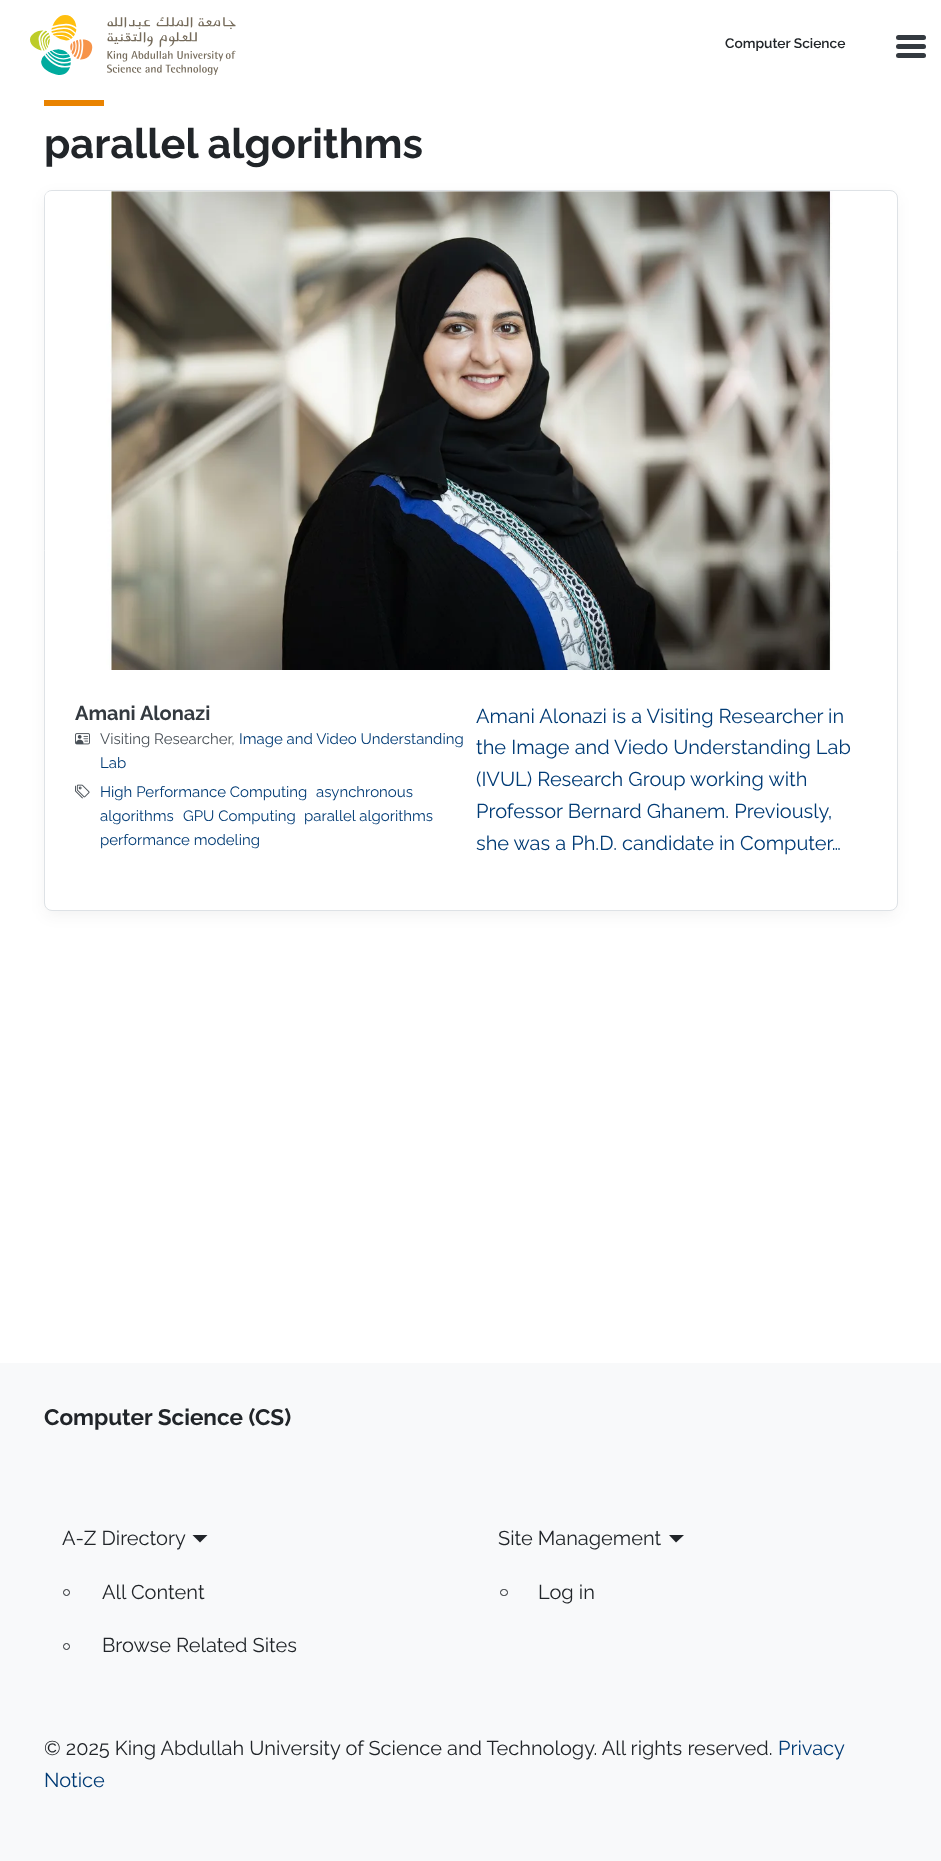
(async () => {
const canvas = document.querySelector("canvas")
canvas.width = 941
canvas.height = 1861
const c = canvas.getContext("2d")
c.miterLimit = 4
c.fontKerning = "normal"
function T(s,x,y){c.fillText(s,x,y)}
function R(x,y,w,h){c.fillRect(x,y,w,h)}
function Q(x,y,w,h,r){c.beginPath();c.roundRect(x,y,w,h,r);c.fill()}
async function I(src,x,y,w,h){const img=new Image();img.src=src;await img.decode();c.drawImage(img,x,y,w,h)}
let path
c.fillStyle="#fff"
R(0,0,941,1861)
await I("1.png",30,15,206,60)
c.font="600 13.75px Raleway"
c.fillStyle="#212529"
T("Computer Science",725,48)
c.fillStyle="#343a40"
Q(896,44,30,5,2.5)
Q(896,35,30,5,2.5)
Q(896,53,30,5,2.5)
c.fillStyle="#e98300"
R(44,100,60,6)
c.font="bold 41.6px Raleway"
c.fillStyle="#212529"
T("parallel algorithms",44,158)
c.fillStyle="#2125290f"
c.filter="blur(7.5px)"
c.beginPath()
c.roundRect(45,196,851,719,6)
c.fill()
c.filter="none"
c.fillStyle="#fff"
c.beginPath()
c.roundRect(44.5,190.5,853,720,7.5)
c.fill()
c.strokeStyle="#dee2e6"
c.stroke()
await I("2.png",45,191,788,479)
c.font="bold 20px Raleway"
c.fillStyle="#343a40"
T("Amani Alonazi",75,720)
await I("3.png",75,733,15,12)
c.font="15px Raleway"
c.fillStyle="#495057"
T("Visiting Researcher,",100,744)
c.fillStyle="#003b75"
T("Image and Video Understanding",239,744)
T("Lab",100,768)
await I("4.png",75,784,15,15)
T("High Performance Computing",100,797)
T("asynchronous",316,797)
T("algorithms",100,821)
T("GPU Computing",183,821)
T("parallel algorithms",304,821)
T("performance modeling",100,845)
c.font="20px Raleway"
T("Amani Alonazi is a Visiting Researcher in",476,723)
T("the Image and Viedo Understanding Lab",476,754)
T("(IVUL) Research Group working with",476,786)
T("Professor Bernard Ghanem. Previously,",476,818)
T("she was a Ph.D. candidate in Computer…",476,850)
c.fillStyle="#f8f9fa"
R(0,1363,941,498)
c.font="bold 22.5px Raleway"
c.fillStyle="#212529"
T("Computer Science (CS)",44,1425)
c.font="20px Raleway"
T("A-Z Directory",62,1545)
path = new Path2D("M192.5 1535h15l-7.5 7.5z")
c.fill(path)
c.beginPath()
c.arc(66.5,1592.5,3,0,7)
c.strokeStyle="#212529"
c.stroke()
T("All Content",102,1599)
c.beginPath()
c.arc(66.5,1646.5,3,0,7)
c.stroke()
T("Browse Related Sites",102,1652)
T("Site Management",498,1545)
path = new Path2D("M669 1535h15l-8 7.5z")
c.fill(path)
c.beginPath()
c.roundRect(500.5,1589.5,7,6,3)
c.stroke()
T("Log in",538,1599)
T("© 2025 King Abdullah University of Science and Technology. All rights reserved.",44,1755)
c.fillStyle="#003b75"
T("Privacy",778,1755)
T("Notice",44,1787)
})()
